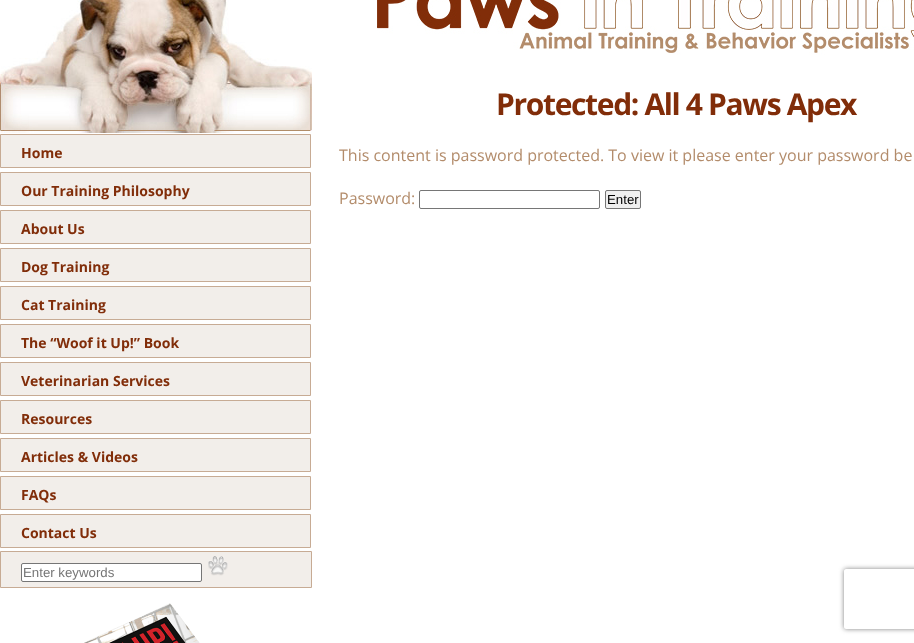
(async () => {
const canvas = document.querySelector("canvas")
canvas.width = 914
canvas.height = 643
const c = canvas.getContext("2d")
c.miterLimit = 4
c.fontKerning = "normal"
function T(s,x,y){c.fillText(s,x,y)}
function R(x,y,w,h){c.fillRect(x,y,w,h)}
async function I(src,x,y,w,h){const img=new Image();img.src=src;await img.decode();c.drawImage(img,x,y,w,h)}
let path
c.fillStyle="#fff"
R(0,0,914,643)
await I("1.png",0,0,312,133)
c.fillStyle="#f2eeea"
c.beginPath()
c.rect(.5,134.5,310,33)
c.fill()
c.strokeStyle="#c7ab94"
c.stroke()
c.font="bold 14px Open Sans"
c.fillStyle="#812d09"
T("Home",21,158)
c.fillStyle="#f2eeea"
c.beginPath()
c.rect(.5,172.5,310,33)
c.fill()
c.stroke()
c.fillStyle="#812d09"
T("Our Training Philosophy",21,196)
c.fillStyle="#f2eeea"
c.beginPath()
c.rect(.5,210.5,310,33)
c.fill()
c.stroke()
c.fillStyle="#812d09"
T("About Us",21,234)
c.fillStyle="#f2eeea"
c.beginPath()
c.rect(.5,248.5,310,33)
c.fill()
c.stroke()
c.fillStyle="#812d09"
T("Dog Training",21,272)
c.fillStyle="#f2eeea"
c.beginPath()
c.rect(.5,286.5,310,33)
c.fill()
c.stroke()
c.fillStyle="#812d09"
T("Cat Training",21,310)
c.fillStyle="#f2eeea"
c.beginPath()
c.rect(.5,324.5,310,33)
c.fill()
c.stroke()
c.fillStyle="#812d09"
T("The “Woof it Up!” Book",21,348)
c.fillStyle="#f2eeea"
c.beginPath()
c.rect(.5,362.5,310,33)
c.fill()
c.stroke()
c.fillStyle="#812d09"
T("Veterinarian Services",21,386)
c.fillStyle="#f2eeea"
c.beginPath()
c.rect(.5,400.5,310,33)
c.fill()
c.stroke()
c.fillStyle="#812d09"
T("Resources",21,424)
c.fillStyle="#f2eeea"
c.beginPath()
c.rect(.5,438.5,310,33)
c.fill()
c.stroke()
c.fillStyle="#812d09"
T("Articles & Videos",21,462)
c.fillStyle="#f2eeea"
c.beginPath()
c.rect(.5,476.5,310,33)
c.fill()
c.stroke()
c.fillStyle="#812d09"
T("FAQs",21,500)
c.fillStyle="#f2eeea"
c.beginPath()
c.rect(.5,514.5,310,33)
c.fill()
c.stroke()
c.fillStyle="#812d09"
T("Contact Us",21,538)
c.fillStyle="#f2eeea"
c.beginPath()
c.rect(.5,551.5,311,36)
c.fill()
c.stroke()
c.fillStyle="#fff"
c.beginPath()
c.roundRect(21.5,563.5,180,18,1.5)
c.fill()
c.strokeStyle="#767676"
c.stroke()
c.font="13.25px Liberation Sans"
c.fillStyle="#757575"
T("Enter keywords",23,577)
await I("2.png",208,556,20,20)
await I("3.png",84,603,116,40)
await I("4.png",377,0,537,55)
c.letterSpacing="-1.35px"
c.font="bold 30px Open Sans"
c.fillStyle="#812d09"
T("Protected: All 4 Paws Apex",496,115)
c.letterSpacing="0px"
c.font="16px Open Sans"
c.fillStyle="#b38c6b"
T("This content is password protected. To view it please enter your password be",339,161)
T("Password:",339,204)
c.beginPath()
c.roundRect(419.5,190.5,180,18,1.5)
c.stroke()
c.fillStyle="#efefef"
c.beginPath()
c.roundRect(605.5,190.5,35,18,1.5)
c.fill()
c.stroke()
c.font="13.25px Liberation Sans"
c.fillStyle="#000"
T("Enter",607,204)
c.save()
path = new Path2D("M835 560h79v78h-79zm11 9h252c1 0 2 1 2 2v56c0 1-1 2-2 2h-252c-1 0-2-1-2-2v-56c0-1 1-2 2-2z")
c.clip(path,"evenodd")
c.fillStyle="#808080"
c.filter="blur(2.5px)"
c.beginPath()
c.roundRect(844,569,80,60,2)
c.fill()
c.filter="none"
c.restore()
})()
